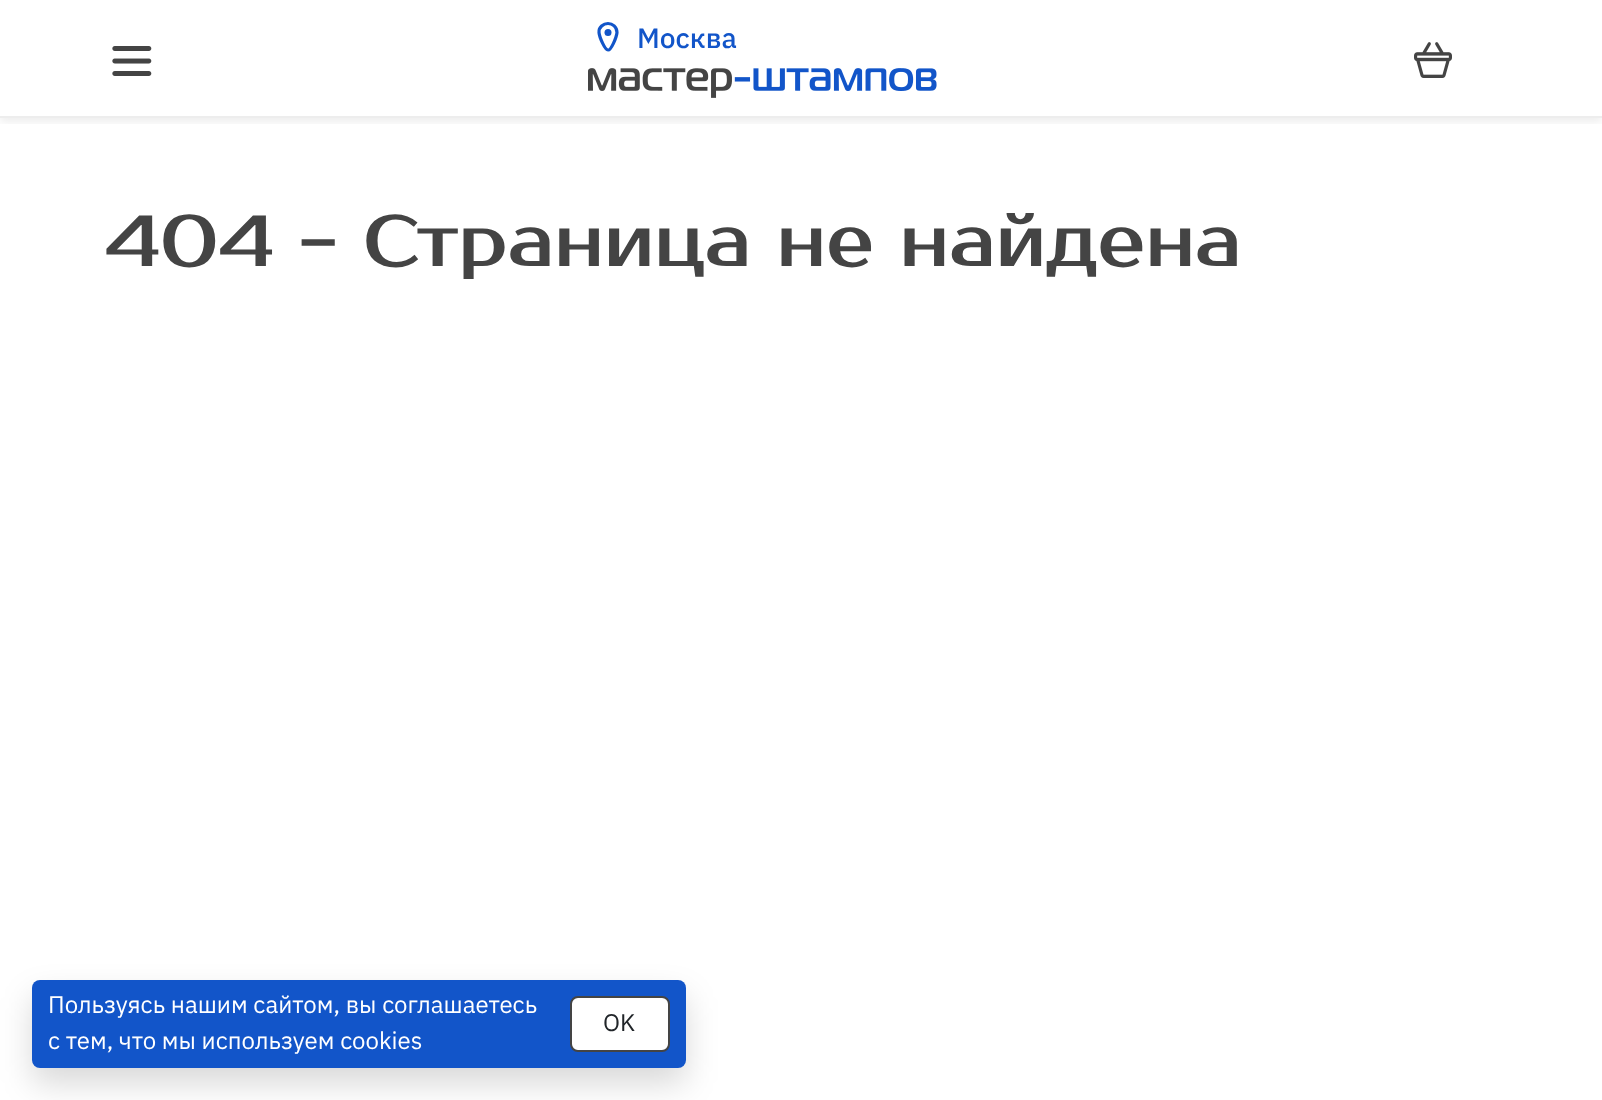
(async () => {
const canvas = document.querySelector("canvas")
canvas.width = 1602
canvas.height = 1100
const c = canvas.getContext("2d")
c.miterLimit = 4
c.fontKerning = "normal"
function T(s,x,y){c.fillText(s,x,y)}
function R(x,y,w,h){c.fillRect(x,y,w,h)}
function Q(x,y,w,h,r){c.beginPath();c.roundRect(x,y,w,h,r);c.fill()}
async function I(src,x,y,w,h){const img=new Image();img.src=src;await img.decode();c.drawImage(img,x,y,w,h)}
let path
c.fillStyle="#fff"
R(0,0,1602,1100)
c.save()
c.beginPath()
c.rect(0,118,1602,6)
c.clip()
c.fillStyle="#00000012"
c.filter="blur(4px)"
c.beginPath()
c.rect(0,4,1602,118)
c.fill()
c.filter="none"
c.restore()
c.fillStyle="#ededed"
R(0,116,1602,2)
c.font="500 28px IBM Plex Sans"
c.fillStyle="#1255c9"
T("Москва",637,48)
path = new Path2D("M608 23.5c4.5 0 9 3.5 9 9c-.5 5-6 18-9 17.5c-3 0-8.5-12.5-9-17.5c-.5-5.5 4.5-9 9-9z")
c.strokeStyle="#1255c9"
c.lineWidth=3.2
c.stroke(path)
c.beginPath()
c.arc(608,32.5,3.5,0,7)
c.fill()
await I("1.png",588,68,349,30)
await I("2.png",112,46,40,30)
await I("3.png",1414,42,38,36)
c.font="72px Prosto One"
c.fillStyle="#444"
T("404 - Страница не найдена",105,266)
c.fillStyle="#00000026"
c.filter="blur(16px)"
c.beginPath()
c.roundRect(32,996,654,88,8)
c.fill()
c.filter="none"
c.fillStyle="#1255c9"
Q(32,980,654,88,8)
c.font="24px IBM Plex Sans"
c.fillStyle="#fff"
T("Пользуясь нашим сайтом, вы соглашаетесь",48,1013)
T("с тем, что мы используем cookies",48,1049)
c.beginPath()
c.roundRect(571,997,98,54,7)
c.fill()
c.strokeStyle="#444"
c.lineWidth=2
c.stroke()
c.fillStyle="#212529"
T("OK",603,1031)
})()
